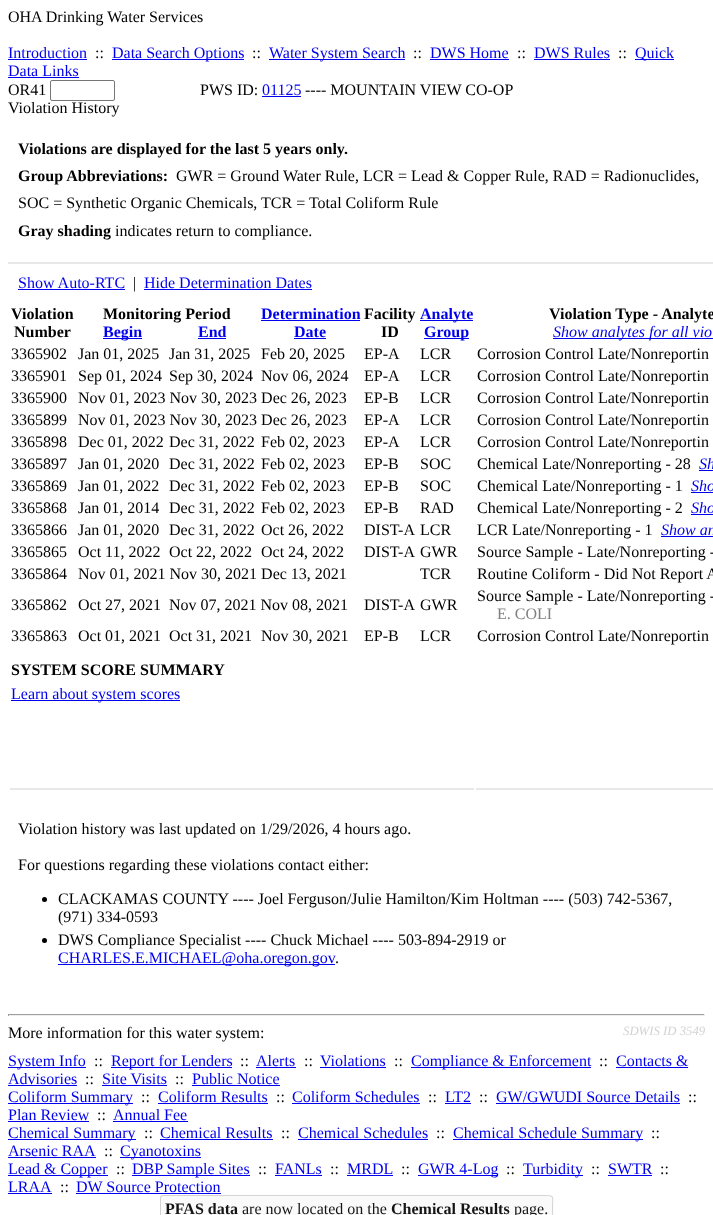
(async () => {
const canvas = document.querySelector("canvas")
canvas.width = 713
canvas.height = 1215
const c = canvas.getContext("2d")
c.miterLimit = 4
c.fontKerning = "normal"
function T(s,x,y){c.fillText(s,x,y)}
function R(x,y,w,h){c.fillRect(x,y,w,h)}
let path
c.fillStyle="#fff"
R(0,0,713,1215)
c.font="16px Liberation Serif"
c.fillStyle="#000"
T("OHA Drinking Water Services",8,22)
c.fillStyle="#00e"
T("Introduction",8,58)
R(8,59,79,1)
c.fillStyle="#000"
T("::",95,58)
c.fillStyle="#00e"
R(112,59,132,1)
T("Data Search Options",112,58)
c.fillStyle="#000"
T("::",252,58)
c.fillStyle="#00e"
R(269,59,136,1)
T("Water System Search",269,58)
c.fillStyle="#000"
T("::",413,58)
c.fillStyle="#00e"
T("DWS Home",430,58)
R(430,59,79,1)
c.fillStyle="#000"
T("::",517,58)
c.fillStyle="#00e"
T("DWS Rules",534,58)
R(534,59,76,1)
c.fillStyle="#000"
T("::",618,58)
c.fillStyle="#00e"
R(635,59,39,1)
T("Quick",635,58)
T("Data Links",8,76)
R(8,77,71,1)
c.fillStyle="#000"
T("OR41",8,95)
c.beginPath()
c.roundRect(50.5,80.5,64,20,1.5)
c.strokeStyle="#767676"
c.stroke()
T("PWS ID:",200,95)
c.fillStyle="#00e"
T("01125",262,95)
R(262,96,39,1)
c.fillStyle="#000"
T("---- MOUNTAIN VIEW CO-OP",305,95)
T("Violation History",8,113)
c.font="bold 16px Liberation Serif"
T("Violations are displayed for the last 5 years only.",18,154)
T("Group Abbreviations:",18,181)
c.font="16px Liberation Serif"
T("GWR = Ground Water Rule, LCR = Lead & Copper Rule, RAD = Radionuclides,",176,181)
T("SOC = Synthetic Organic Chemicals, TCR = Total Coliform Rule",18,208)
c.font="bold 16px Liberation Serif"
T("Gray shading",18,236)
c.font="16px Liberation Serif"
T("indicates return to compliance.",115,236)
c.fillStyle="#e8e8e8"
R(8,262,705,2)
c.fillStyle="#00e"
T("Show Auto-RTC",18,288)
R(18,289,107,1)
c.fillStyle="#000"
T("|",133,288)
c.fillStyle="#00e"
T("Hide Determination Dates",144,288)
R(144,289,168,1)
c.font="bold 16px Liberation Serif"
c.fillStyle="#000"
T("Violation",11,319)
T("Number",14,337)
T("Monitoring Period",103,319)
c.fillStyle="#00e"
R(103,338,39,1)
T("Begin",103,337)
T("End",198,337)
R(198,338,28,1)
T("Determination",261,319)
R(261,320,99,1)
T("Date",294,337)
R(294,338,32,1)
c.fillStyle="#000"
T("Facility",364,319)
T("ID",381,337)
c.fillStyle="#00e"
R(420,320,53,1)
T("Analyte",420,319)
R(424,338,45,1)
T("Group",424,337)
c.fillStyle="#000"
T("Violation Type - Analyte",549,319)
c.fillStyle="#00e"
R(553,338,160,1)
c.font="italic 16px Liberation Serif"
T("Show analytes for all vio",553,337)
c.font="16px Liberation Serif"
c.fillStyle="#000"
T("3365902",11,359)
T("Jan 01, 2025",78,359)
T("Jan 31, 2025",169,359)
T("Feb 20, 2025",261,359)
T("EP-A",364,359)
T("LCR",420,359)
T("Corrosion Control Late/Nonreportin",477,359)
T("3365901",11,381)
T("Sep 01, 2024",78,381)
T("Sep 30, 2024",169,381)
T("Nov 06, 2024",261,381)
T("EP-A",364,381)
T("LCR",420,381)
T("Corrosion Control Late/Nonreportin",477,381)
T("3365900",11,403)
T("Nov 01, 2023 Nov 30, 2023 Dec 26, 2023",78,403)
T("EP-B",364,403)
T("LCR",420,403)
T("Corrosion Control Late/Nonreportin",477,403)
T("3365899",11,425)
T("Nov 01, 2023 Nov 30, 2023 Dec 26, 2023",78,425)
T("EP-A",364,425)
T("LCR",420,425)
T("Corrosion Control Late/Nonreportin",477,425)
T("3365898",11,447)
T("Dec 01, 2022",78,447)
T("Dec 31, 2022",169,447)
T("Feb 02, 2023",261,447)
T("EP-A",364,447)
T("LCR",420,447)
T("Corrosion Control Late/Nonreportin",477,447)
T("3365897",11,469)
T("Jan 01, 2020",78,469)
T("Dec 31, 2022",169,469)
T("Feb 02, 2023",261,469)
T("EP-B",364,469)
T("SOC",420,469)
T("Chemical Late/Nonreporting - 28",477,469)
c.font="italic 16px Liberation Serif"
c.fillStyle="#00e"
T("Sh",699,469)
R(699,470,14,1)
c.font="16px Liberation Serif"
c.fillStyle="#000"
T("3365869",11,491)
T("Jan 01, 2022",78,491)
T("Dec 31, 2022",169,491)
T("Feb 02, 2023",261,491)
T("EP-B",364,491)
T("SOC",420,491)
T("Chemical Late/Nonreporting - 1",477,491)
c.font="italic 16px Liberation Serif"
c.fillStyle="#00e"
T("Sho",691,491)
R(691,492,22,1)
c.font="16px Liberation Serif"
c.fillStyle="#000"
T("3365868",11,513)
T("Jan 01, 2014",78,513)
T("Dec 31, 2022",169,513)
T("Feb 02, 2023",261,513)
T("EP-B",364,513)
T("RAD",420,513)
T("Chemical Late/Nonreporting - 2",477,513)
c.font="italic 16px Liberation Serif"
c.fillStyle="#00e"
T("Sho",691,513)
R(691,514,22,1)
c.font="16px Liberation Serif"
c.fillStyle="#000"
T("3365866",11,535)
T("Jan 01, 2020",78,535)
T("Dec 31, 2022",169,535)
T("Oct 26, 2022",261,535)
T("DIST-A",364,535)
T("LCR",420,535)
T("LCR Late/Nonreporting - 1",477,535)
c.font="italic 16px Liberation Serif"
c.fillStyle="#00e"
T("Show an",661,535)
R(661,536,52,1)
c.font="16px Liberation Serif"
c.fillStyle="#000"
T("3365865",11,557)
T("Oct 11, 2022",78,557)
T("Oct 22, 2022",169,557)
T("Oct 24, 2022",261,557)
T("DIST-A",364,557)
T("GWR",420,557)
T("Source Sample - Late/Nonreporting -",477,557)
T("3365864",11,579)
T("Nov 01, 2021 Nov 30, 2021 Dec 13, 2021",78,579)
T("TCR",420,579)
T("Routine Coliform - Did Not Report A",477,579)
T("3365862",11,610)
T("Oct 27, 2021",78,610)
T("Nov 07, 2021 Nov 08, 2021",169,610)
T("DIST-A",364,610)
T("GWR",420,610)
T("Source Sample - Late/Nonreporting -",477,601)
c.fillStyle="#808080"
T("E. COLI",497,619)
c.fillStyle="#000"
T("3365863",11,641)
T("Oct 01, 2021",78,641)
T("Oct 31, 2021",169,641)
T("Nov 30, 2021",261,641)
T("EP-B",364,641)
T("LCR",420,641)
T("Corrosion Control Late/Nonreportin",477,641)
c.fillStyle="#e8e8e8"
R(10,788,464,2)
c.font="bold 16px Liberation Serif"
c.fillStyle="#000"
T("SYSTEM SCORE SUMMARY",11,675)
c.fillStyle="#00e"
R(11,700,169,1)
c.font="16px Liberation Serif"
T("Learn about system scores",11,699)
c.fillStyle="#e8e8e8"
R(476,788,237,2)
c.fillStyle="#000"
T("Violation history was last updated on 1/29/2026, 4 hours ago.",18,834)
T("For questions regarding these violations contact either:",18,870)
c.beginPath()
c.arc(44.5,899.5,2.5,0,7)
c.fill()
T("CLACKAMAS COUNTY ---- Joel Ferguson/Julie Hamilton/Kim Holtman ---- (503) 742-5367,",58,904)
T("(971) 334-0593",58,922)
c.beginPath()
c.arc(44.5,940.5,2.5,0,7)
c.fill()
T("DWS Compliance Specialist ---- Chuck Michael ---- 503-894-2919 or",58,945)
c.fillStyle="#00e"
R(58,964,277,1)
T("CHARLES.E.MICHAEL@oha.oregon.gov",58,963)
c.fillStyle="#000"
T(".",335,963)
c.fillStyle="#9f9f9f"
R(8,1014,697,1)
c.fillStyle="#eee"
R(704,1014,1,2)
R(8,1015,697,1)
c.fillStyle="#9f9f9f"
R(8,1014,1,2)
c.fillStyle="#000"
T("More information for this water system:",8,1038)
c.font="italic 12.75px Liberation Serif"
c.fillStyle="#d3d3d3"
T("SDWIS ID 3549",623,1035)
c.fillStyle="#00e"
R(8,1067,78,1)
c.font="16px Liberation Serif"
T("System Info",8,1066)
c.fillStyle="#000"
T("::",94,1066)
c.fillStyle="#00e"
R(111,1067,121,1)
T("Report for Lenders",111,1066)
c.fillStyle="#000"
T("::",240,1066)
c.fillStyle="#00e"
T("Alerts",256,1066)
R(256,1067,40,1)
c.fillStyle="#000"
T("::",304,1066)
c.fillStyle="#00e"
T("Violations",320,1066)
R(320,1067,66,1)
c.fillStyle="#000"
T("::",394,1066)
c.fillStyle="#00e"
R(411,1067,180,1)
T("Compliance & Enforcement",411,1066)
c.fillStyle="#000"
T("::",599,1066)
c.fillStyle="#00e"
T("Contacts &",616,1066)
R(616,1067,72,1)
T("Advisories",8,1084)
R(8,1085,69,1)
c.fillStyle="#000"
T("::",85,1084)
c.fillStyle="#00e"
T("Site Visits",102,1084)
R(102,1085,65,1)
c.fillStyle="#000"
T("::",175,1084)
c.fillStyle="#00e"
T("Public Notice",192,1084)
R(192,1085,88,1)
R(8,1103,125,1)
T("Coliform Summary",8,1102)
c.fillStyle="#000"
T("::",141,1102)
c.fillStyle="#00e"
T("Coliform Results",158,1102)
R(158,1103,110,1)
c.fillStyle="#000"
T("::",276,1102)
c.fillStyle="#00e"
T("Coliform Schedules",292,1102)
R(292,1103,128,1)
c.fillStyle="#000"
T("::",428,1102)
c.fillStyle="#00e"
T("LT2",445,1102)
R(445,1103,26,1)
c.fillStyle="#000"
T("::",479,1102)
c.fillStyle="#00e"
T("GW/GWUDI Source Details",496,1102)
R(496,1103,184,1)
c.fillStyle="#000"
T("::",688,1102)
c.fillStyle="#00e"
T("Plan Review",8,1120)
R(8,1121,81,1)
c.fillStyle="#000"
T("::",97,1120)
c.fillStyle="#00e"
T("Annual Fee",113,1120)
R(113,1121,75,1)
R(8,1139,128,1)
T("Chemical Summary",8,1138)
c.fillStyle="#000"
T("::",144,1138)
c.fillStyle="#00e"
T("Chemical Results",160,1138)
R(160,1139,113,1)
c.fillStyle="#000"
T("::",281,1138)
c.fillStyle="#00e"
T("Chemical Schedules",298,1138)
R(298,1139,130,1)
c.fillStyle="#000"
T("::",436,1138)
c.fillStyle="#00e"
R(453,1139,190,1)
T("Chemical Schedule Summary",453,1138)
c.fillStyle="#000"
T("::",651,1138)
c.fillStyle="#00e"
T("Arsenic RAA",8,1156)
R(8,1157,88,1)
c.fillStyle="#000"
T("::",104,1156)
c.fillStyle="#00e"
R(120,1157,81,1)
T("Cyanotoxins",120,1156)
R(8,1175,100,1)
T("Lead & Copper",8,1174)
c.fillStyle="#000"
T("::",116,1174)
c.fillStyle="#00e"
R(132,1175,118,1)
T("DBP Sample Sites",132,1174)
c.fillStyle="#000"
T("::",258,1174)
c.fillStyle="#00e"
T("FANLs",275,1174)
R(275,1175,47,1)
c.fillStyle="#000"
T("::",330,1174)
c.fillStyle="#00e"
T("MRDL",347,1174)
R(347,1175,46,1)
c.fillStyle="#000"
T("::",401,1174)
c.fillStyle="#00e"
R(418,1175,80,1)
T("GWR 4-Log",418,1174)
c.fillStyle="#000"
T("::",506,1174)
c.fillStyle="#00e"
R(523,1175,60,1)
T("Turbidity",523,1174)
c.fillStyle="#000"
T("::",591,1174)
c.fillStyle="#00e"
T("SWTR",608,1174)
R(608,1175,44,1)
c.fillStyle="#000"
T("::",660,1174)
c.fillStyle="#00e"
T("LRAA",8,1192)
R(8,1193,44,1)
c.fillStyle="#000"
T("::",60,1192)
c.fillStyle="#00e"
T("DW Source Protection",76,1192)
R(76,1193,145,1)
c.fillStyle="#fafafa"
path = new Path2D("M163 1195h75v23h-75c-1.5 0-3-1.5-3-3v-17c0-1.5 1.5-3 3-3z")
c.fill(path)
c.fillStyle="#d3d3d3"
path = new Path2D("M163 1195h75v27h-75c-2 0-3-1-3-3v-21c0-2 1-3 3-3zm0 1h75v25h-75c-1 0-2-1-2-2v-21c0-1 1-2 2-2z")
c.fill(path,"evenodd")
c.font="bold 16px Liberation Serif"
c.fillStyle="#151515"
T("PFAS data",165,1214)
c.fillStyle="#fafafa"
R(238,1196,272,19)
c.fillStyle="#d3d3d3"
R(238,1195,272,1)
c.font="16px Liberation Serif"
c.fillStyle="#151515"
T("are now located on the",242,1214)
c.font="bold 16px Liberation Serif"
T("Chemical Results",391,1214)
c.fillStyle="#fafafa"
path = new Path2D("M510 1195h40c1.5 0 3 1.5 3 3v17c0 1.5-1.5 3-3 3h-40z")
c.fill(path)
c.fillStyle="#d3d3d3"
path = new Path2D("M510 1195h33c13 0 10 1 10 13c0 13 3 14-10 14h-33zm0 1h33c12 0 9 0 9 12c0 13 3 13-9 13h-33z")
c.fill(path,"evenodd")
c.font="16px Liberation Serif"
c.fillStyle="#151515"
T("page.",514,1214)
})()
